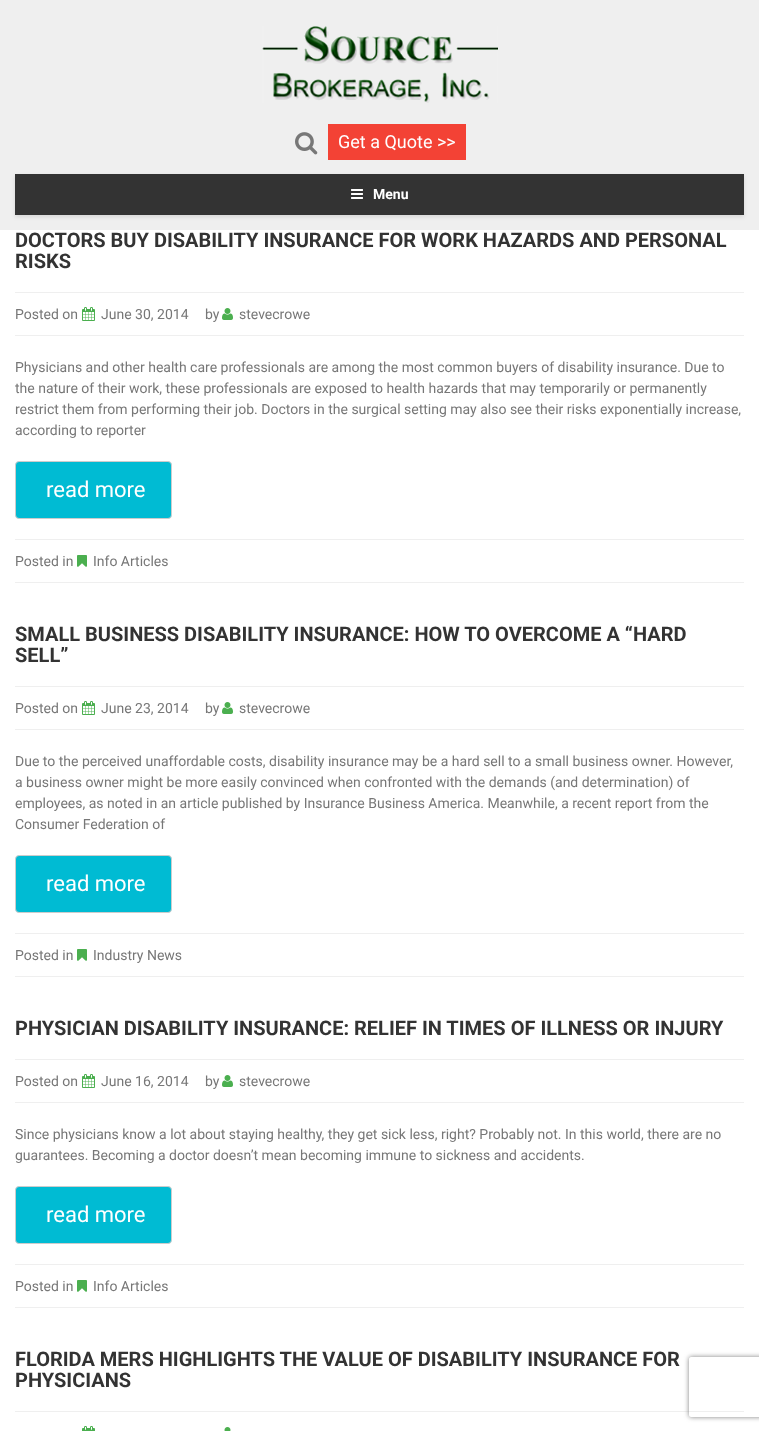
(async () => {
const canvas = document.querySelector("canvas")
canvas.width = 759
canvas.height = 1431
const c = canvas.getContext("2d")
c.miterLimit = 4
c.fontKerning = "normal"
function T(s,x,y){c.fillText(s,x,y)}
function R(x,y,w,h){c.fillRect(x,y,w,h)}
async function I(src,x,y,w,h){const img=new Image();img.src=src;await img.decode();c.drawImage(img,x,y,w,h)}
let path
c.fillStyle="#fff"
R(0,0,759,1431)
c.fillStyle="#efefef"
R(0,0,759,230)
await I("1.png",295,132,23,23)
await I("2.png",262,26,236,77)
c.fillStyle="#f34235"
R(328,124,138,36)
c.font="18px Roboto"
c.fillStyle="#fff"
T("Get a Quote >>",338,148)
c.fillStyle="#0000001a"
c.filter="blur(2px)"
c.beginPath()
c.rect(15,176,729,41)
c.fill()
c.filter="none"
c.fillStyle="#333"
R(15,174,729,41)
await I("3.png",351,189,12,10)
c.font="bold 14px Roboto"
c.fillStyle="#fff"
T("Menu",373,199)
c.font="bold 20px Roboto"
c.fillStyle="#333"
T("DOCTORS BUY DISABILITY INSURANCE FOR WORK HAZARDS AND PERSONAL",15,247)
T("RISKS",15,268)
c.fillStyle="#efefef"
R(15,292,729,1)
R(15,335,729,1)
c.font="14px Roboto"
c.fillStyle="#777"
T("Posted on",15,319)
await I("4.png",82,307,13,14)
T("June 30, 2014",101,319)
T("by",205,319)
await I("5.png",222,308,11,12)
T("stevecrowe",239,319)
T("Physicians and other health care professionals are among the most common buyers of disability insurance. Due to",15,372)
T("the nature of their work, these professionals are exposed to health hazards that may temporarily or permanently",15,393)
T("restrict them from performing their job. Doctors in the surgical setting may also see their risks exponentially increase,",15,414)
T("according to reporter",15,435)
c.fillStyle="#00bbd3"
c.beginPath()
c.roundRect(15.5,461.5,156,57,3.5)
c.fill()
c.strokeStyle="#ccc"
c.stroke()
c.font="22px Roboto"
c.fillStyle="#fff"
T("read more",46,497)
c.fillStyle="#efefef"
R(15,539,729,1)
R(15,582,729,1)
c.font="14px Roboto"
c.fillStyle="#777"
T("Posted in",15,566)
await I("6.png",77,555,10,12)
T("Info Articles",93,566)
c.font="bold 20px Roboto"
c.fillStyle="#333"
T("SMALL BUSINESS DISABILITY INSURANCE: HOW TO OVERCOME A “HARD",15,641)
T("SELL”",15,662)
c.fillStyle="#efefef"
R(15,686,729,1)
R(15,729,729,1)
c.font="14px Roboto"
c.fillStyle="#777"
T("Posted on",15,713)
await I("4.png",82,701,13,14)
T("June 23, 2014",101,713)
T("by",205,713)
await I("5.png",222,702,11,12)
T("stevecrowe",239,713)
T("Due to the perceived unaffordable costs, disability insurance may be a hard sell to a small business owner. However,",15,766)
T("a business owner might be more easily convinced when confronted with the demands (and determination) of",15,787)
T("employees, as noted in an article published by Insurance Business America. Meanwhile, a recent report from the",15,808)
T("Consumer Federation of",15,829)
c.fillStyle="#00bbd3"
c.beginPath()
c.roundRect(15.5,855.5,156,57,3.5)
c.fill()
c.stroke()
c.font="22px Roboto"
c.fillStyle="#fff"
T("read more",46,891)
c.fillStyle="#efefef"
R(15,933,729,1)
R(15,976,729,1)
c.font="14px Roboto"
c.fillStyle="#777"
T("Posted in",15,960)
await I("6.png",77,949,10,12)
T("Industry News",93,960)
c.font="bold 20px Roboto"
c.fillStyle="#333"
T("PHYSICIAN DISABILITY INSURANCE: RELIEF IN TIMES OF ILLNESS OR INJURY",15,1035)
c.fillStyle="#efefef"
R(15,1059,729,1)
R(15,1102,729,1)
c.font="14px Roboto"
c.fillStyle="#777"
T("Posted on",15,1086)
await I("4.png",82,1074,13,14)
T("June 16, 2014",101,1086)
T("by",205,1086)
await I("5.png",222,1075,11,12)
T("stevecrowe",239,1086)
T("Since physicians know a lot about staying healthy, they get sick less, right? Probably not. In this world, there are no",15,1139)
T("guarantees. Becoming a doctor doesn’t mean becoming immune to sickness and accidents.",15,1160)
c.fillStyle="#00bbd3"
c.beginPath()
c.roundRect(15.5,1186.5,156,57,3.5)
c.fill()
c.stroke()
c.font="22px Roboto"
c.fillStyle="#fff"
T("read more",46,1222)
c.fillStyle="#efefef"
R(15,1264,729,1)
R(15,1307,729,1)
c.font="14px Roboto"
c.fillStyle="#777"
T("Posted in",15,1291)
await I("6.png",77,1280,10,12)
T("Info Articles",93,1291)
c.font="bold 20px Roboto"
c.fillStyle="#333"
T("FLORIDA MERS HIGHLIGHTS THE VALUE OF DISABILITY INSURANCE FOR",15,1366)
T("PHYSICIANS",15,1387)
c.fillStyle="#efefef"
R(15,1411,729,1)
await I("7.png",82,1426,13,5)
await I("8.png",224,1427,7,4)
c.save()
path = new Path2D("M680 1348h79v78h-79zm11 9h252c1 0 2 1 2 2v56c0 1-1 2-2 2h-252c-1 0-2-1-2-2v-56c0-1 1-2 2-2z")
c.clip(path,"evenodd")
c.fillStyle="#808080"
c.filter="blur(2.5px)"
c.beginPath()
c.roundRect(689,1357,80,60,2)
c.fill()
c.filter="none"
c.restore()
})()
